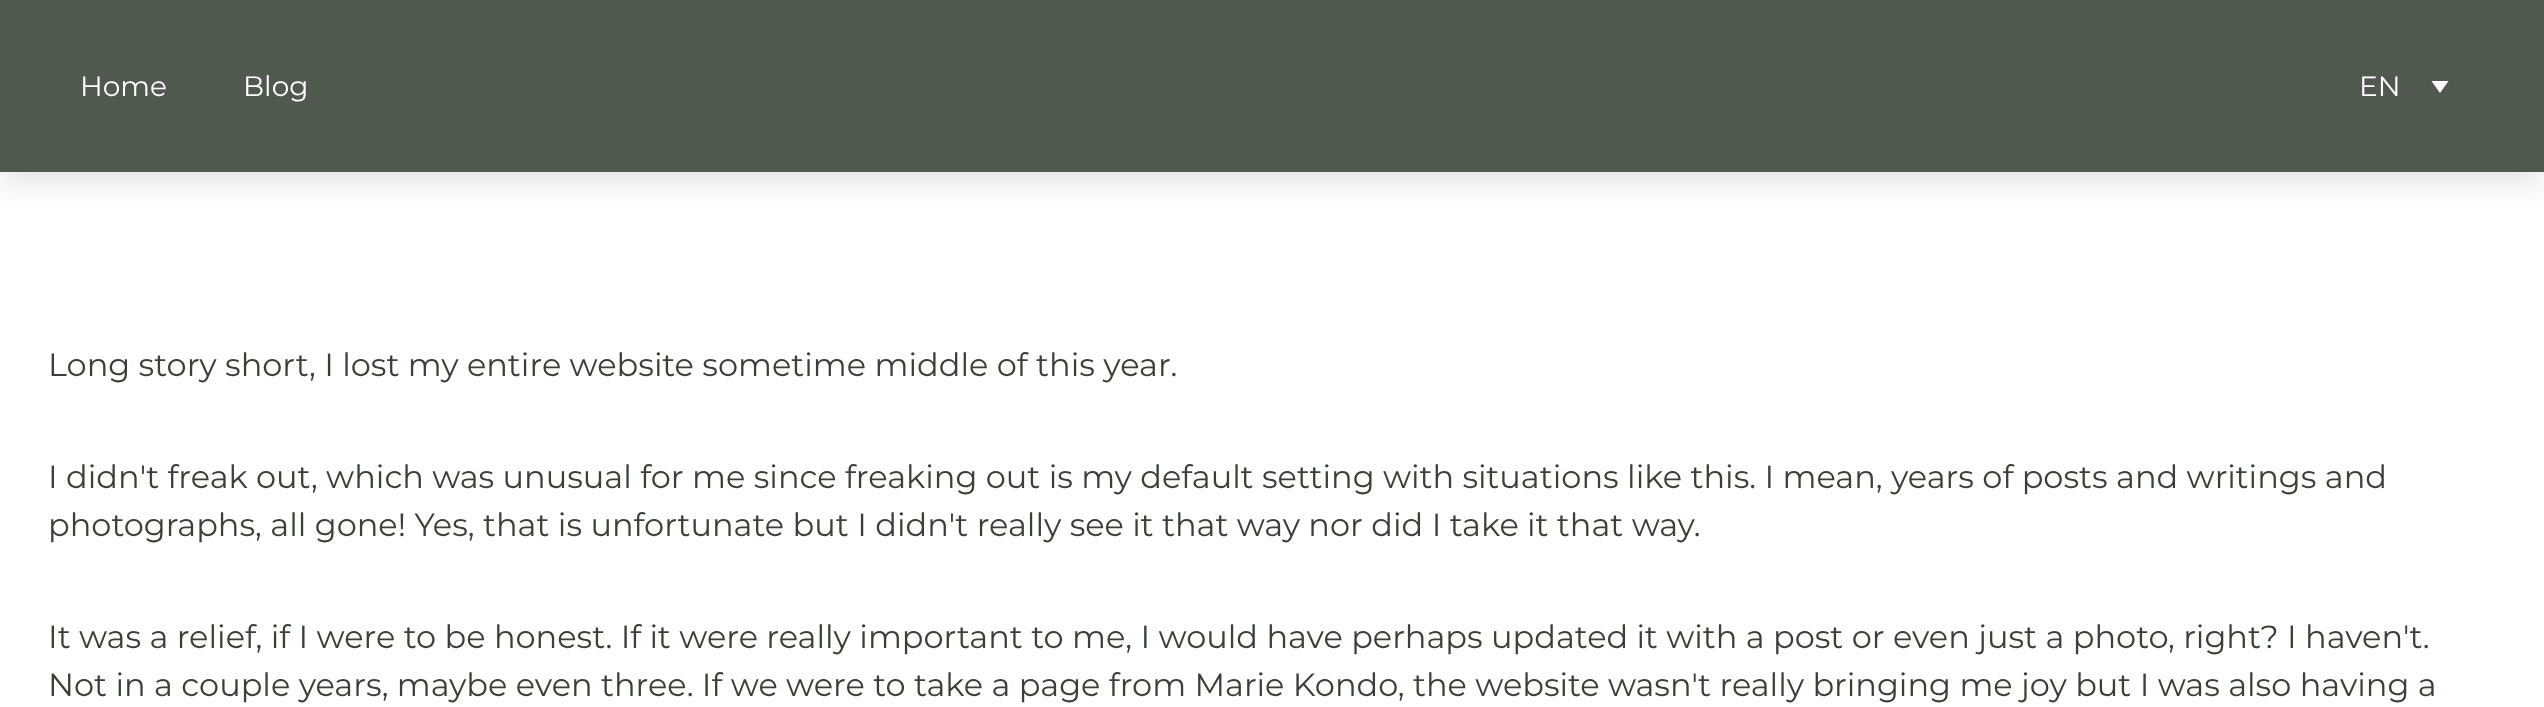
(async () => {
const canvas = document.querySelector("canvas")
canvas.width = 2544
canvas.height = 707
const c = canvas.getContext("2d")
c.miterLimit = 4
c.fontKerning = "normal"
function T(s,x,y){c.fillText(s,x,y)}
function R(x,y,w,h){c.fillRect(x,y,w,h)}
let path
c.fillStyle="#fff"
R(0,0,2544,707)
c.fillStyle="#0000001a"
c.filter="blur(14px)"
c.beginPath()
c.rect(0,12,2544,172)
c.fill()
c.filter="none"
c.fillStyle="#4f594e"
R(0,0,2544,172)
c.font="100 28px Montserrat"
c.fillStyle="#fff"
T("Home",80,96)
T("Blog",243,96)
T("EN",2359,96)
path = new Path2D("M2440 93l-8.5-12h17z")
c.fill(path)
c.font="100 32px Montserrat"
c.fillStyle="#394038"
T("Long story short, I lost my entire website sometime middle of this year.",48,376)
T("I didn't freak out, which was unusual for me since freaking out is my default setting with situations like this. I mean, years of posts and writings and",48,488)
T("photographs, all gone! Yes, that is unfortunate but I didn't really see it that way nor did I take it that way.",48,536)
T("It was a relief, if I were to be honest. If it were really important to me, I would have perhaps updated it with a post or even just a photo, right? I haven't.",48,648)
T("Not in a couple years, maybe even three. If we were to take a page from Marie Kondo, the website wasn't really bringing me joy but I was also having a",48,696)
})()
